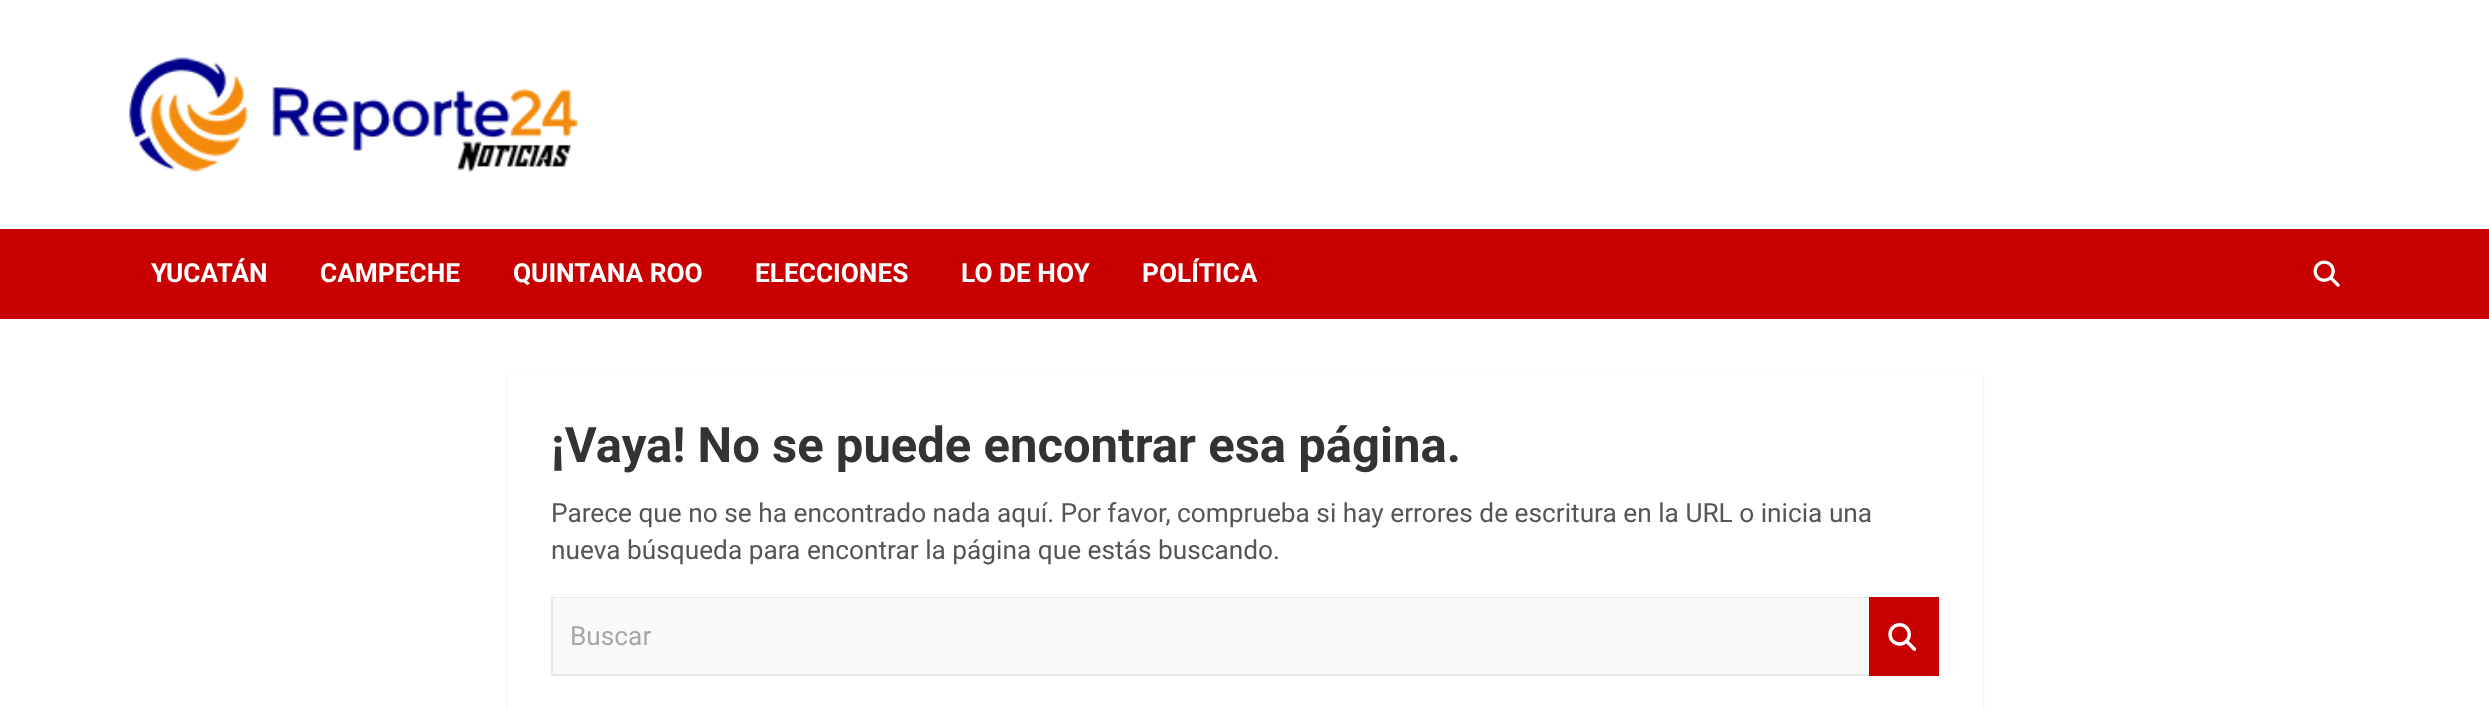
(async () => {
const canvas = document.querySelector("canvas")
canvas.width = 2489
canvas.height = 709
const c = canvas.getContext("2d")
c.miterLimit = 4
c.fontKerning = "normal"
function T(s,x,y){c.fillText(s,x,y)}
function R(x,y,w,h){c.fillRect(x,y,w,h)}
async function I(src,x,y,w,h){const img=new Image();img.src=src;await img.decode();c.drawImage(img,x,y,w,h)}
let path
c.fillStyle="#fff"
R(0,0,2489,709)
await I("1.png",129,57,449,115)
c.fillStyle="#c80000"
R(0,229,2489,90)
c.font="bold 26.25px Roboto"
c.fillStyle="#fff"
T("YUCATÁN",151,282)
T("CAMPECHE",320,282)
T("QUINTANA ROO",513,282)
T("ELECCIONES",755,282)
T("LO DE HOY",961,282)
T("POLÍTICA",1142,282)
await I("2.png",2313,260,27,27)
c.fillStyle="#0000001a"
c.filter="blur(1px)"
c.beginPath()
c.rect(508,373,1475,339)
c.fill()
c.filter="none"
c.fillStyle="#fff"
R(508,372,1475,337)
c.font="bold 49px Roboto"
c.fillStyle="#333"
T("¡Vaya! No se puede encontrar esa página.",551,462)
c.font="26.25px Roboto"
c.fillStyle="#555"
T("Parece que no se ha encontrado nada aquí. Por favor, comprueba si hay errores de escritura en la URL o inicia una",551,522)
T("nueva búsqueda para encontrar la página que estás buscando.",551,559)
c.fillStyle="#f9f9f9"
R(553,599,1316,75)
c.fillStyle="#e8e8e8"
path = new Path2D("M551 597h1318v1h-1316z")
c.fill(path)
path = new Path2D("M1869 676h-1318l2-2h1316z")
c.fill(path)
c.fillStyle="#00000017"
path = new Path2D("M551 676v-79l2 1v76z")
c.fill(path)
c.fillStyle="#a7a7a7"
T("Buscar",570,645)
c.fillStyle="#c80000"
R(1869,597,70,79)
await I("3.png",1888,623,29,28)
})()
